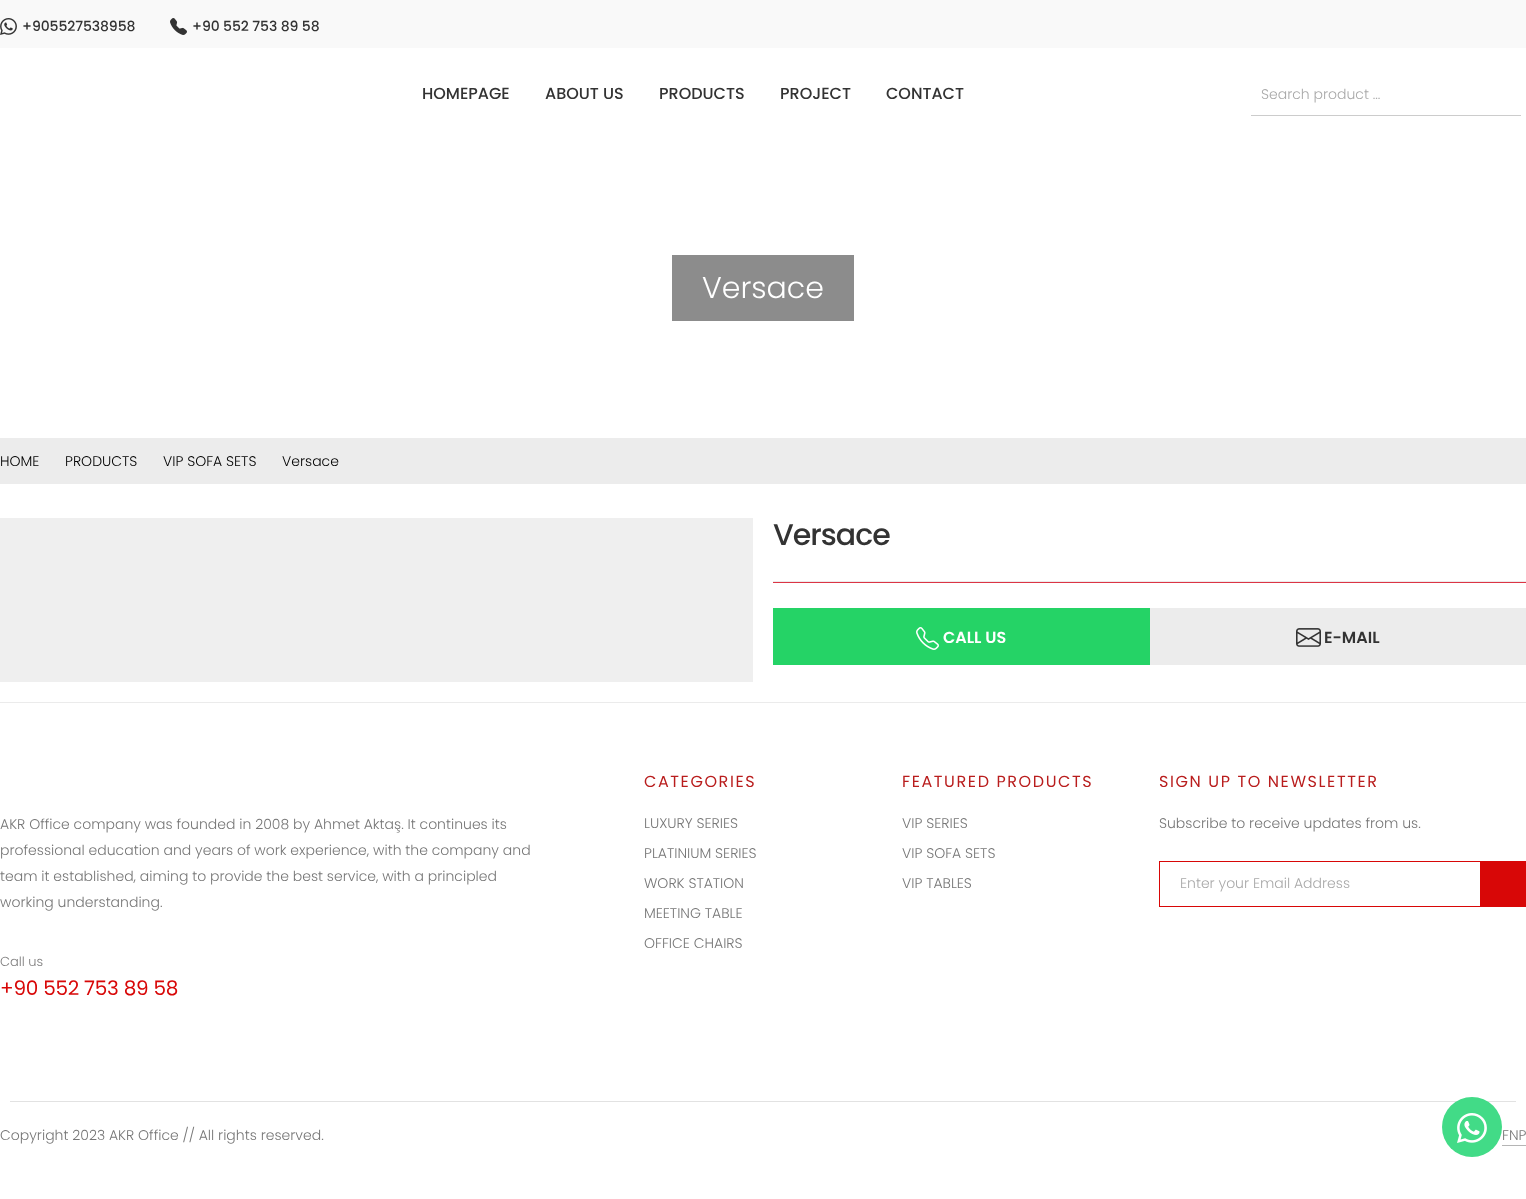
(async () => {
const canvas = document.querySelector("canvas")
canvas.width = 1526
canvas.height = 1199
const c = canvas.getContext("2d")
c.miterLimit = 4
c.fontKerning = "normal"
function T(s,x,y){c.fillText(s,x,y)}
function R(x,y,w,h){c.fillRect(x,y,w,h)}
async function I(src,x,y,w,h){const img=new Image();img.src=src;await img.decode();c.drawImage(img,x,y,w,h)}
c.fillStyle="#fff"
R(0,0,1526,1199)
c.fillStyle="#f9f9f9"
R(0,0,1526,48)
await I("1.png",0,18,17,17)
c.letterSpacing="-0.1px"
c.font="500 14px Poppins"
c.fillStyle="#333"
T("+905527538958",22,31)
await I("2.png",170,18,17,17)
T("+90 552 753 89 58",192,31)
c.letterSpacing="0px"
c.font="500 16px Poppins"
T("HOMEPAGE",422,99)
T("ABOUT US",545,99)
T("PRODUCTS",659,99)
T("PROJECT",780,99)
T("CONTACT",886,99)
c.fillStyle="#ccc"
R(1251,115,270,1)
c.font="300 14px Poppins"
c.fillStyle="#a9a9a9"
T("Search product ...",1261,99)
c.fillStyle="#8c8c8c"
R(672,255,182,66)
c.font="300 30px Poppins"
c.fillStyle="#fff"
T("Versace",702,298)
c.fillStyle="#ececec"
R(0,438,1526,46)
c.font="300 14px Poppins"
c.fillStyle="#000"
T("HOME",0,466)
T("PRODUCTS",65,466)
T("VIP SOFA SETS",163,466)
T("Versace",282,466)
c.fillStyle="#efefef"
R(0,518,753,164)
c.letterSpacing="-1px"
c.font="500 30px Poppins"
c.fillStyle="#333"
T("Versace",773,545)
c.fillStyle="#dc3545"
R(773,582,753,1)
c.fillStyle="#ebebeb"
R(773,581,753,1)
c.fillStyle="#25d366"
R(773,608,377,57)
await I("3.png",916,627,23,23)
c.letterSpacing="0px"
c.font="600 16px Poppins"
c.fillStyle="#fff"
T("CALL US",943,643)
c.fillStyle="#ececec"
R(1150,608,376,57)
await I("4.png",1296,628,25,19)
c.fillStyle="#333"
T("E-MAIL",1324,643)
c.fillStyle="#ebebeb"
R(0,702,1526,1)
c.font="300 14px Poppins"
c.fillStyle="#777"
T("AKR Office company was founded in 2008 by Ahmet Aktaş. It continues its",0,829)
T("professional education and years of work experience, with the company and",0,855)
T("team it established, aiming to provide the best service, with a principled",0,881)
T("working understanding.",0,907)
c.font="300 13px Poppins"
c.fillStyle="#7e7d7d"
T("Call us",0,966)
c.letterSpacing="-0.25px"
c.font="20px Poppins"
c.fillStyle="#d80707"
T("+90 552 753 89 58",0,995)
c.letterSpacing="1.6px"
c.font="16px Poppins"
c.fillStyle="#b91d1d"
T("CATEGORIES",644,787)
c.letterSpacing="0px"
c.font="300 14px Poppins"
c.fillStyle="#777"
T("LUXURY SERIES",644,828)
T("PLATINIUM SERIES",644,858)
T("WORK STATION",644,888)
T("MEETING TABLE",644,918)
T("OFFICE CHAIRS",644,948)
c.letterSpacing="1.6px"
c.font="16px Poppins"
c.fillStyle="#b91d1d"
T("FEATURED PRODUCTS",902,787)
c.letterSpacing="0px"
c.font="300 14px Poppins"
c.fillStyle="#777"
T("VIP SERIES",902,828)
T("VIP SOFA SETS",902,858)
T("VIP TABLES",902,888)
c.letterSpacing="1.6px"
c.font="16px Poppins"
c.fillStyle="#b91d1d"
T("SIGN UP TO NEWSLETTER",1159,787)
c.letterSpacing="0px"
c.font="300 14px Poppins"
c.fillStyle="#777"
T("Subscribe to receive updates from us.",1159,828)
c.fillStyle="#d80707"
R(1159,861,322,1)
R(1159,906,322,1)
R(1159,861,1,46)
c.fillStyle="#a9a9a9"
T("Enter your Email Address",1180,888)
c.fillStyle="#d80707"
R(1480,861,46,46)
c.fillStyle="#e2e2e2"
R(10,1101,1506,1)
c.fillStyle="#777"
T("Copyright 2023 AKR Office // All rights reserved.",0,1140)
T("FNP",1502,1140)
c.fillStyle="#b5b5b5"
R(1502,1145,24,1)
c.fillStyle="#42db87"
c.beginPath()
c.arc(1472,1127,30,0,7)
c.fill()
await I("5.png",1457,1113,30,30)
})()
